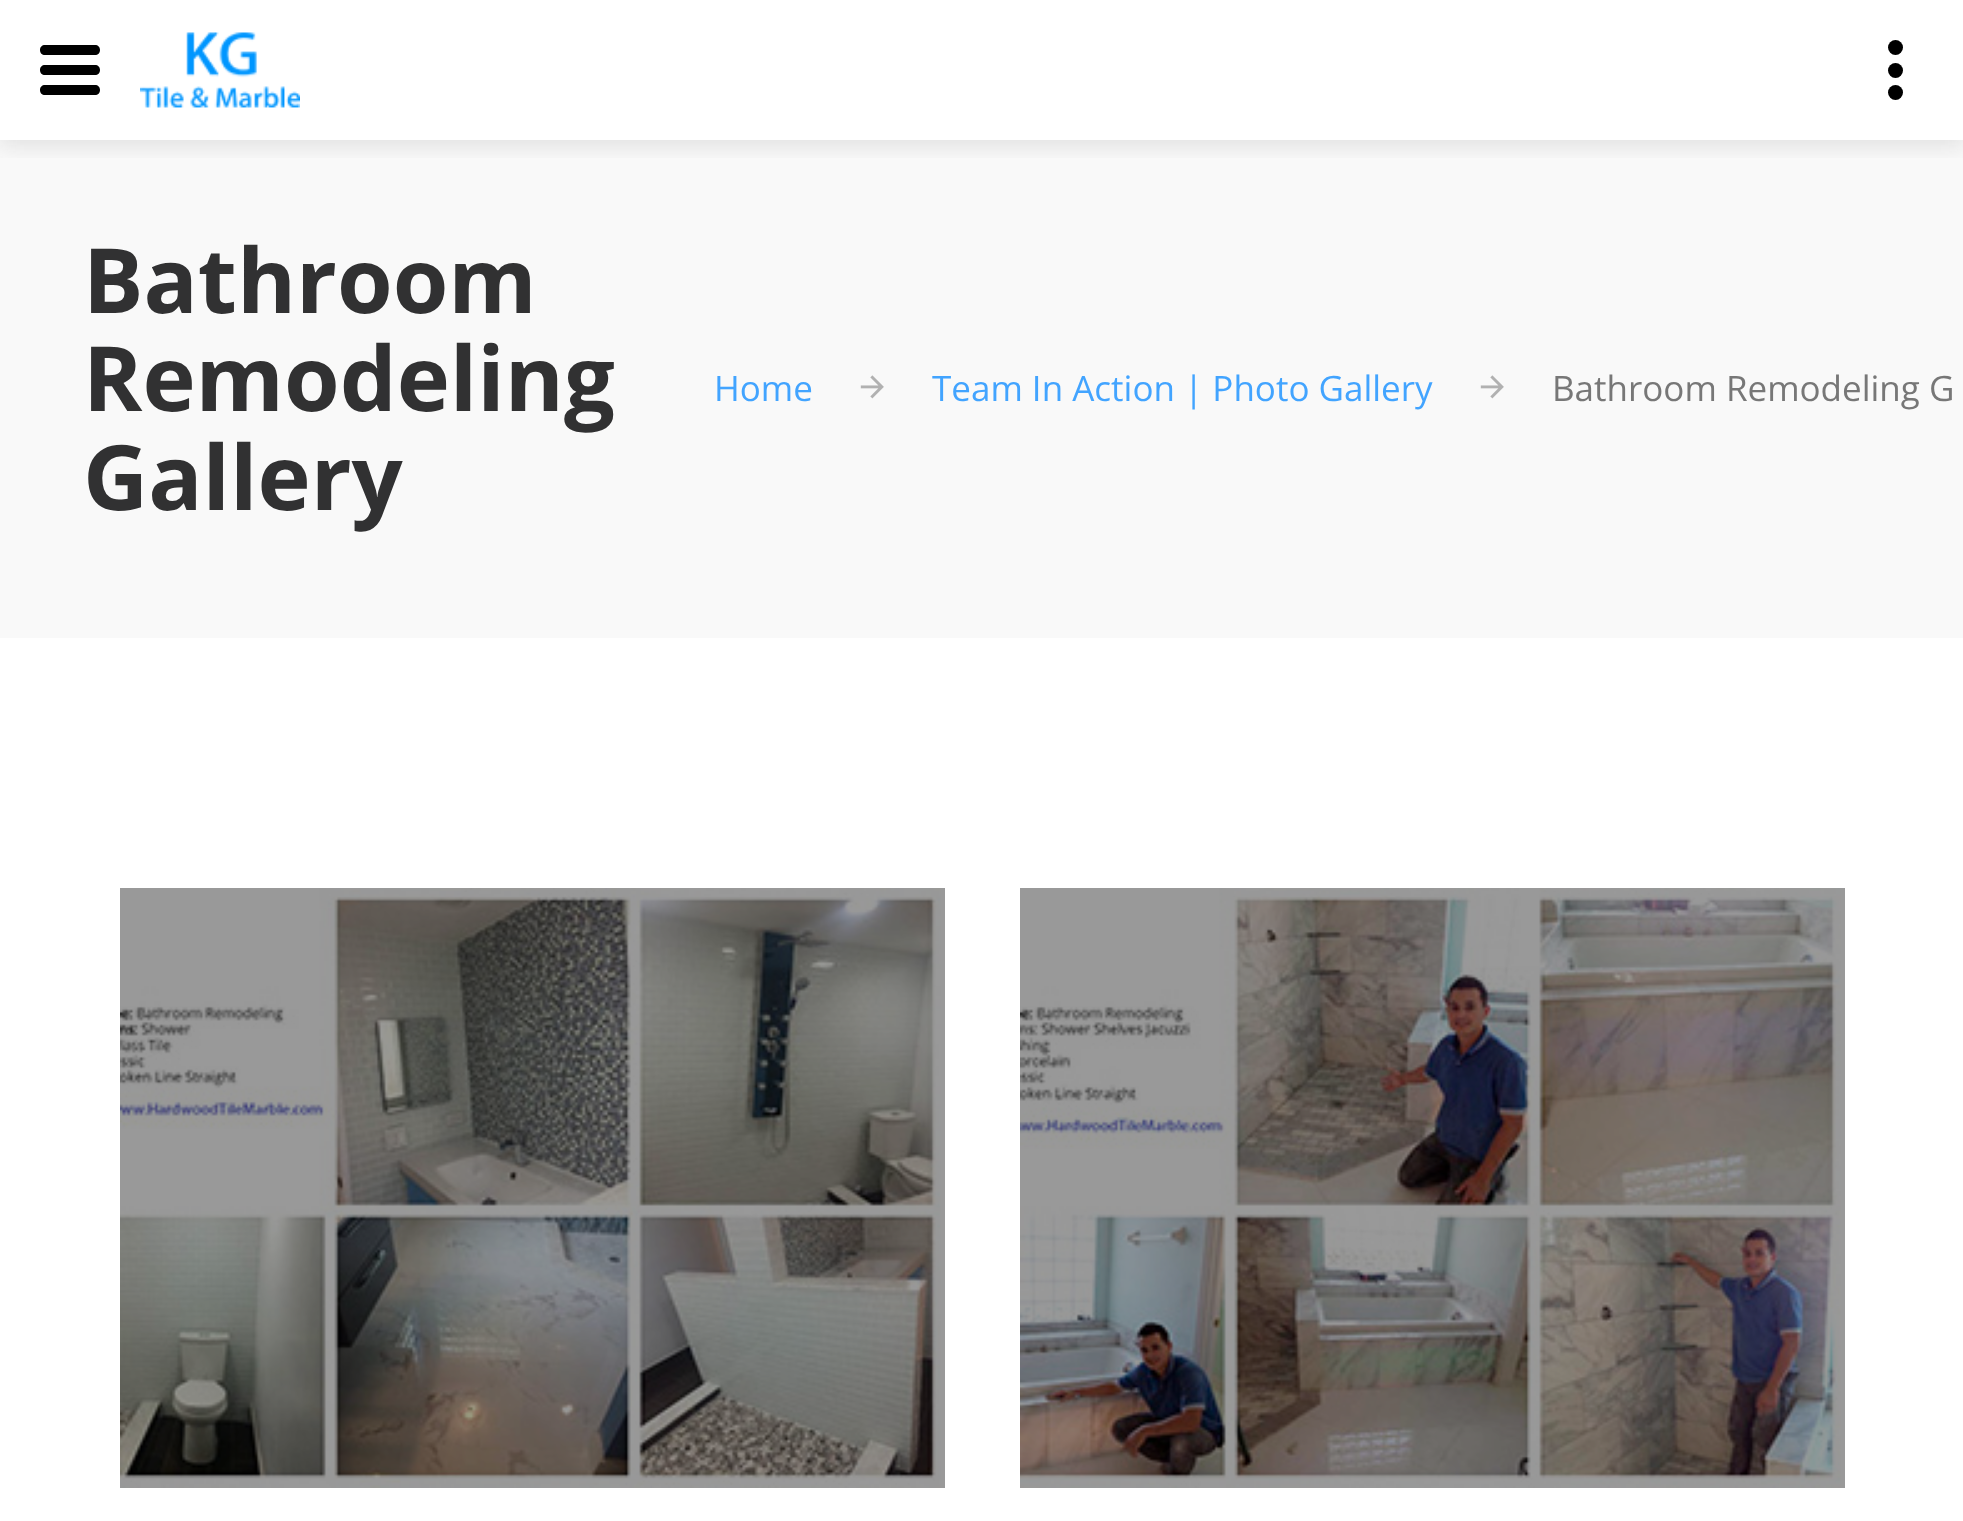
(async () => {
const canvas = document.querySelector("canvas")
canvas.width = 1963
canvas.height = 1521
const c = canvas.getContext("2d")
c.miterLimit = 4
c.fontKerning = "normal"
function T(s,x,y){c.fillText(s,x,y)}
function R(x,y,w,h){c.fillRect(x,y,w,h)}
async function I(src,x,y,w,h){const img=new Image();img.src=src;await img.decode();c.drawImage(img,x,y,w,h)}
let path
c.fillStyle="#fff"
R(0,0,1963,1521)
c.fillStyle="#f9f9f9"
R(0,140,1963,498)
c.save()
c.beginPath()
c.rect(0,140,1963,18)
c.clip()
c.fillStyle="#31313221"
c.filter="blur(12.5px)"
c.beginPath()
c.rect(0,5,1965,140)
c.fill()
c.filter="none"
c.restore()
c.fillStyle="#000"
path = new Path2D("M95 75h-50c-3 0-5-2-5-5c0-3 2-5 5-5h50c3 0 5 2 5 5c0 3-2 5-5 5zm0 20h-50c-3 0-5-2-5-5c0-3 2-5 5-5h50c3 0 5 2 5 5c0 3-2 5-5 5zm0-40h-50c-3 0-5-2-5-5c0-3 2-5 5-5h50c3 0 5 2 5 5c0 3-2 5-5 5z")
c.fill(path)
await I("1.png",140,32,160,76)
c.beginPath()
c.arc(1895.5,70.5,7.5,0,7)
c.fill()
c.beginPath()
c.arc(1895.5,47.5,7.5,0,7)
c.fill()
c.beginPath()
c.arc(1895.5,92.5,7.5,0,7)
c.fill()
c.font="bold 90px Open Sans"
c.fillStyle="#313132"
T("Bathroom",83,313)
T("Remodeling",83,411)
T("Gallery",83,510)
c.font="35px Open Sans"
c.fillStyle="#42a4ff"
T("Home",714,401)
await I("2.png",860,375,24,24)
T("Team In Action | Photo Gallery",932,401)
await I("2.png",1480,375,24,24)
c.fillStyle="#777"
T("Bathroom Remodeling G",1552,401)
c.fillStyle="#000"
R(120,888,825,600)
await I("3.png",120,888,825,600)
R(1020,888,825,600)
await I("4.png",1020,888,825,600)
})()
